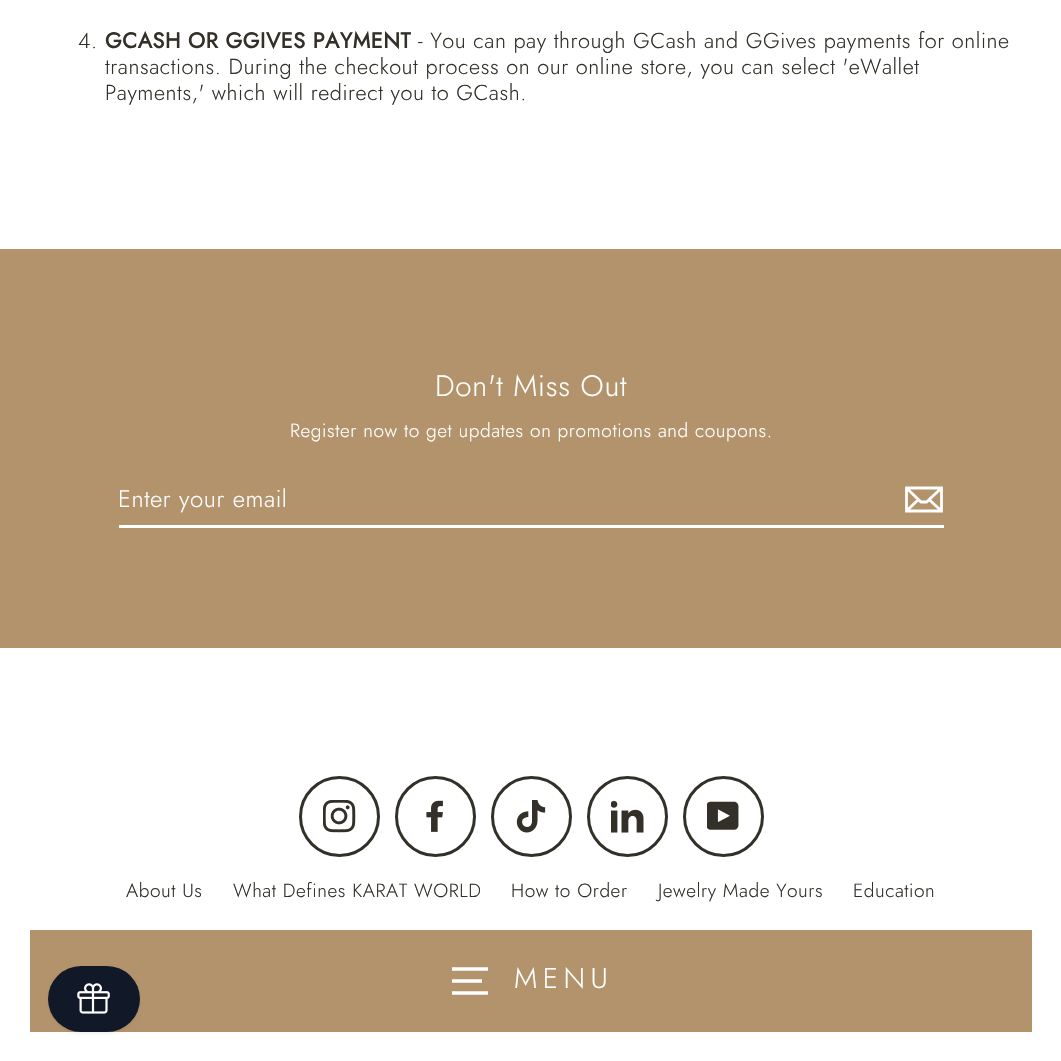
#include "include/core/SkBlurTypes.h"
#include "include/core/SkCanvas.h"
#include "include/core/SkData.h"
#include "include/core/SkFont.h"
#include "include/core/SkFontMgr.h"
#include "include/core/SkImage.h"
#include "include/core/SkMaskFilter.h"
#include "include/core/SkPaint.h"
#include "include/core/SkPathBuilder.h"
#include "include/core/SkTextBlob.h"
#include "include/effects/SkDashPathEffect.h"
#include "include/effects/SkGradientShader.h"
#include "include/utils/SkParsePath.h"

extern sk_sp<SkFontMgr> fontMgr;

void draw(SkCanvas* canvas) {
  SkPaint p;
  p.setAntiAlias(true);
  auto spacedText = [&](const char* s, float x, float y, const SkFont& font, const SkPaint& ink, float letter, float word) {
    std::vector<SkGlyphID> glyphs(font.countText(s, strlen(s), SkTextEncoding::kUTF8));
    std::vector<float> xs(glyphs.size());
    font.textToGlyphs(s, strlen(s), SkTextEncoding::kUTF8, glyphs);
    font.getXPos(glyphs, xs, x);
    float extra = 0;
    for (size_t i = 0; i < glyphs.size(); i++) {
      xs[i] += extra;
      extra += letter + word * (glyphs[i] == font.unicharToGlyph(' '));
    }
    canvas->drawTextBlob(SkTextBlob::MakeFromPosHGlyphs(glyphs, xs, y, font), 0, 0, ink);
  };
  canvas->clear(SK_ColorWHITE);
  p.setColor(SkColorSetRGB(178, 147, 107));
  canvas->drawRect(SkRect::MakeLTRB(0, 249, 1061, 648), p);
  p.setColor(SK_ColorWHITE);
  canvas->drawRect(SkRect::MakeLTRB(119, 525, 944, 528), p);
  p.setStyle(SkPaint::kStroke_Style);
  p.setStrokeWidth(2.8f);
  canvas->drawPath(SkPathBuilder().moveTo(941.5f, 511).lineTo(906.5f, 511).lineTo(906.5f, 488).lineTo(941.5f, 488).close().moveTo(906.5f, 488).lineTo(921, 502).lineTo(926.5f, 502).lineTo(941.5f, 488).moveTo(918.5f, 499.5f).lineTo(907, 510.5f).moveTo(941, 510.5f).lineTo(929, 499.5f).detach(), p);
  p.setStrokeWidth(3);
  p.setColor(SkColorSetRGB(51, 48, 41));
  canvas->drawCircle(339.5f, 816.5f, 39, p);
  canvas->drawImageRect(SkImages::DeferredFromEncodedData(SkData::MakeFromFileName("images/1.png")), SkRect::MakeLTRB(323, 800, 356, 833), SkSamplingOptions());
  canvas->drawCircle(435.5f, 816.5f, 39, p);
  canvas->drawImageRect(SkImages::DeferredFromEncodedData(SkData::MakeFromFileName("images/2.png")), SkRect::MakeLTRB(426, 800, 443, 832), SkSamplingOptions());
  canvas->drawCircle(531.5f, 816.5f, 39, p);
  canvas->drawImageRect(SkImages::DeferredFromEncodedData(SkData::MakeFromFileName("images/3.png")), SkRect::MakeLTRB(516, 800, 546, 833), SkSamplingOptions());
  canvas->drawCircle(627.5f, 816.5f, 39, p);
  canvas->drawImageRect(SkImages::DeferredFromEncodedData(SkData::MakeFromFileName("images/4.png")), SkRect::MakeLTRB(611, 800, 644, 833), SkSamplingOptions());
  canvas->drawCircle(723.5f, 816.5f, 39, p);
  canvas->drawImageRect(SkImages::DeferredFromEncodedData(SkData::MakeFromFileName("images/5.png")), SkRect::MakeLTRB(707, 801, 739, 830), SkSamplingOptions());
  p.setStyle(SkPaint::kFill_Style);
  p.setColor(SkColorSetRGB(178, 147, 107));
  canvas->drawRect(SkRect::MakeLTRB(30, 930, 1032, 1032), p);
  p.setStyle(SkPaint::kStroke_Style);
  p.setStrokeWidth(3.5f);
  p.setColor(SK_ColorWHITE);
  canvas->drawPath(SkPathBuilder().moveTo(452, 969).lineTo(488, 969).moveTo(452, 981).lineTo(482, 981).moveTo(452, 993).lineTo(488, 993).detach(), p);
  p.setStyle(SkPaint::kFill_Style);
  p.setColor(SkColorSetARGB(13, 0, 0, 0));
  p.setMaskFilter(SkMaskFilter::MakeBlur(kNormal_SkBlurStyle, 1.5f));
  canvas->drawRoundRect(SkRect::MakeLTRB(48, 968, 140, 1034), 33, 33, p);
  p.setMaskFilter(nullptr);
  p.setColor(SkColorSetRGB(17, 24, 39));
  canvas->drawRoundRect(SkRect::MakeLTRB(48, 966, 140, 1032), 33, 33, p);
  canvas->drawImageRect(SkImages::DeferredFromEncodedData(SkData::MakeFromFileName("images/6.png")), SkRect::MakeLTRB(77, 983, 110, 1014), SkSamplingOptions());
  SkFont font1(fontMgr->matchFamilyStyle("Jost", SkFontStyle(300, SkFontStyle::kNormal_Width, SkFontStyle::kUpright_Slant)), 21.65f);
  font1.setSubpixel(true);
  p.setColor(SkColorSetRGB(51, 48, 41));
  spacedText("4.", 78, 48, font1, p, 0.55f, 0);
  SkFont font2(fontMgr->matchFamilyStyle("Jost", SkFontStyle::Bold()), 21.65f);
  font2.setSubpixel(true);
  spacedText("GCASH OR GGIVES PAYMENT", 105, 48, font2, p, 0.55f, 0);
  spacedText("- You can pay through GCash and GGives payments for online", 418, 48, font1, p, 0.55f, 0);
  spacedText("transactions. During the checkout process on our online store, you can select 'eWallet", 105, 74, font1, p, 0.55f, 0);
  spacedText("Payments,' which will redirect you to GCash.", 105, 100, font1, p, 0.55f, 0);
  SkFont font3(fontMgr->matchFamilyStyle("Jost", SkFontStyle(300, SkFontStyle::kNormal_Width, SkFontStyle::kUpright_Slant)), 29.5f);
  font3.setSubpixel(true);
  p.setColor(SK_ColorWHITE);
  spacedText("Don't Miss Out", 435, 396, font3, p, 0.75f, 0);
  SkFont font4(fontMgr->matchFamilyStyle("Jost", SkFontStyle(300, SkFontStyle::kNormal_Width, SkFontStyle::kUpright_Slant)), 19.1f);
  font4.setSubpixel(true);
  spacedText("Register now to get updates on promotions and coupons.", 290, 437, font4, p, 0.55f, 0);
  SkFont font5(fontMgr->matchFamilyStyle("Jost", SkFontStyle(300, SkFontStyle::kNormal_Width, SkFontStyle::kUpright_Slant)), 24);
  font5.setSubpixel(true);
  spacedText("Enter your email", 118, 507, font5, p, 0.6f, 0);
  p.setColor(SkColorSetRGB(51, 48, 41));
  spacedText("About Us", 126, 897, font4, p, 0.55f, 0);
  spacedText("What Defines KARAT WORLD", 233, 897, font4, p, 0.55f, 0);
  spacedText("How to Order", 511, 897, font4, p, 0.55f, 0);
  spacedText("Jewelry Made Yours", 658, 897, font4, p, 0.55f, 0);
  spacedText("Education", 853, 897, font4, p, 0.55f, 0);
  SkFont font6(fontMgr->matchFamilyStyle("Jost", SkFontStyle(300, SkFontStyle::kNormal_Width, SkFontStyle::kUpright_Slant)), 28.5f);
  font6.setSubpixel(true);
  p.setColor(SK_ColorWHITE);
  spacedText("MENU", 514, 988, font6, p, 5.5f, 0);
}
